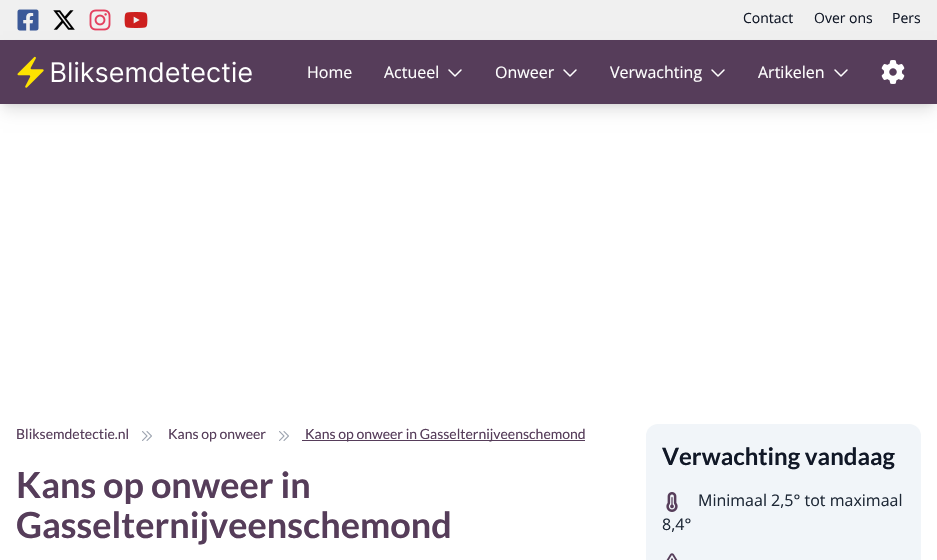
#include "include/core/SkBlurTypes.h"
#include "include/core/SkCanvas.h"
#include "include/core/SkData.h"
#include "include/core/SkFont.h"
#include "include/core/SkFontMgr.h"
#include "include/core/SkImage.h"
#include "include/core/SkMaskFilter.h"
#include "include/core/SkPaint.h"
#include "include/core/SkPathBuilder.h"
#include "include/core/SkTextBlob.h"
#include "include/effects/SkDashPathEffect.h"
#include "include/effects/SkGradientShader.h"
#include "include/utils/SkParsePath.h"

extern sk_sp<SkFontMgr> fontMgr;

void draw(SkCanvas* canvas) {
  SkPaint p;
  p.setAntiAlias(true);
  canvas->clear(SK_ColorWHITE);
  p.setColor(SkColorSetRGB(240, 240, 240));
  canvas->drawRect(SkRect::MakeLTRB(0, 0, 937, 40), p);
  canvas->drawImageRect(SkImages::DeferredFromEncodedData(SkData::MakeFromFileName("images/1.png")), SkRect::MakeLTRB(17, 9, 39, 31), SkSamplingOptions());
  canvas->drawImageRect(SkImages::DeferredFromEncodedData(SkData::MakeFromFileName("images/2.png")), SkRect::MakeLTRB(53, 10, 75, 30), SkSamplingOptions());
  canvas->drawImageRect(SkImages::DeferredFromEncodedData(SkData::MakeFromFileName("images/3.png")), SkRect::MakeLTRB(89, 9, 111, 31), SkSamplingOptions());
  canvas->drawImageRect(SkImages::DeferredFromEncodedData(SkData::MakeFromFileName("images/4.png")), SkRect::MakeLTRB(124, 12, 148, 28), SkSamplingOptions());
  p.setColor(SkColorSetARGB(26, 0, 0, 0));
  p.setMaskFilter(SkMaskFilter::MakeBlur(kNormal_SkBlurStyle, 3));
  canvas->drawRect(SkRect::MakeLTRB(4, 48, 933, 104), p);
  p.setMaskFilter(nullptr);
  p.setMaskFilter(SkMaskFilter::MakeBlur(kNormal_SkBlurStyle, 7.5f));
  canvas->drawRect(SkRect::MakeLTRB(3, 53, 934, 111), p);
  p.setMaskFilter(nullptr);
  p.setColor(SkColorSetRGB(86, 61, 90));
  canvas->drawRect(SkRect::MakeLTRB(0, 40, 937, 104), p);
  canvas->drawImageRect(SkImages::DeferredFromEncodedData(SkData::MakeFromFileName("images/5.png")), SkRect::MakeLTRB(17, 56, 252, 88), SkSamplingOptions());
  canvas->drawImageRect(SkImages::DeferredFromEncodedData(SkData::MakeFromFileName("images/6.png")), SkRect::MakeLTRB(448, 69, 462, 77), SkSamplingOptions());
  canvas->drawImageRect(SkImages::DeferredFromEncodedData(SkData::MakeFromFileName("images/6.png")), SkRect::MakeLTRB(563, 69, 577, 77), SkSamplingOptions());
  canvas->drawImageRect(SkImages::DeferredFromEncodedData(SkData::MakeFromFileName("images/6.png")), SkRect::MakeLTRB(711, 69, 725, 77), SkSamplingOptions());
  canvas->drawImageRect(SkImages::DeferredFromEncodedData(SkData::MakeFromFileName("images/6.png")), SkRect::MakeLTRB(834, 69, 848, 77), SkSamplingOptions());
  canvas->drawImageRect(SkImages::DeferredFromEncodedData(SkData::MakeFromFileName("images/7.png")), SkRect::MakeLTRB(881, 60, 905, 84), SkSamplingOptions());
  canvas->drawImageRect(SkImages::DeferredFromEncodedData(SkData::MakeFromFileName("images/8.png")), SkRect::MakeLTRB(142, 431, 152, 441), SkSamplingOptions());
  canvas->drawImageRect(SkImages::DeferredFromEncodedData(SkData::MakeFromFileName("images/8.png")), SkRect::MakeLTRB(279, 431, 289, 441), SkSamplingOptions());
  canvas->drawRect(SkRect::MakeLTRB(302, 440, 585, 441), p);
  p.setColor(SkColorSetRGB(241, 245, 249));
  canvas->drawRoundRect(SkRect::MakeLTRB(646, 424, 921, 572), 12, 12, p);
  canvas->drawImageRect(SkImages::DeferredFromEncodedData(SkData::MakeFromFileName("images/9.png")), SkRect::MakeLTRB(666, 492, 678, 512), SkSamplingOptions());
  canvas->drawImageRect(SkImages::DeferredFromEncodedData(SkData::MakeFromFileName("images/10.png")), SkRect::MakeLTRB(666, 553, 678, 560), SkSamplingOptions());
  SkFont font1(fontMgr->matchFamilyStyle("Open Sans", SkFontStyle::Normal()), 14);
  font1.setSubpixel(true);
  p.setColor(SkColorSetRGB(17, 24, 39));
  canvas->drawString("Contact", 743, 23, font1, p);
  canvas->drawString("Over ons", 814, 23, font1, p);
  canvas->drawString("Pers", 892, 23, font1, p);
  SkFont font2(fontMgr->matchFamilyStyle("Open Sans", SkFontStyle::Normal()), 16);
  font2.setSubpixel(true);
  p.setColor(SK_ColorWHITE);
  canvas->drawString("Home", 307, 78, font2, p);
  canvas->drawString("Actueel", 384, 78, font2, p);
  canvas->drawString("Onweer", 495, 78, font2, p);
  canvas->drawString("Verwachting", 610, 78, font2, p);
  canvas->drawString("Artikelen", 758, 78, font2, p);
  SkFont font3(fontMgr->matchFamilyStyle("Lato", SkFontStyle::Normal()), 14);
  font3.setSubpixel(true);
  p.setColor(SkColorSetRGB(86, 61, 90));
  canvas->drawString("Bliksemdetectie.nl", 16, 439, font3, p);
  canvas->drawString("Kans op onweer", 168, 439, font3, p);
  canvas->drawString("Kans op onweer in Gasselternijveenschemond", 305, 439, font3, p);
  SkFont font4(fontMgr->matchFamilyStyle("Lato", SkFontStyle::Bold()), 36);
  font4.setSubpixel(true);
  canvas->drawString("Kans op onweer in", 16, 498, font4, p);
  canvas->drawString("Gasselternijveenschemond", 16, 538, font4, p);
  SkFont font5(fontMgr->matchFamilyStyle("Lato", SkFontStyle::Bold()), 24);
  font5.setSubpixel(true);
  p.setColor(SkColorSetRGB(17, 24, 39));
  canvas->drawString("Verwachting vandaag", 662, 465, font5, p);
  p.setColor(SkColorSetRGB(31, 41, 55));
  canvas->drawString("Minimaal 2,5° tot maximaal", 698, 506, font2, p);
  canvas->drawString("8,4°", 662, 530, font2, p);
}
